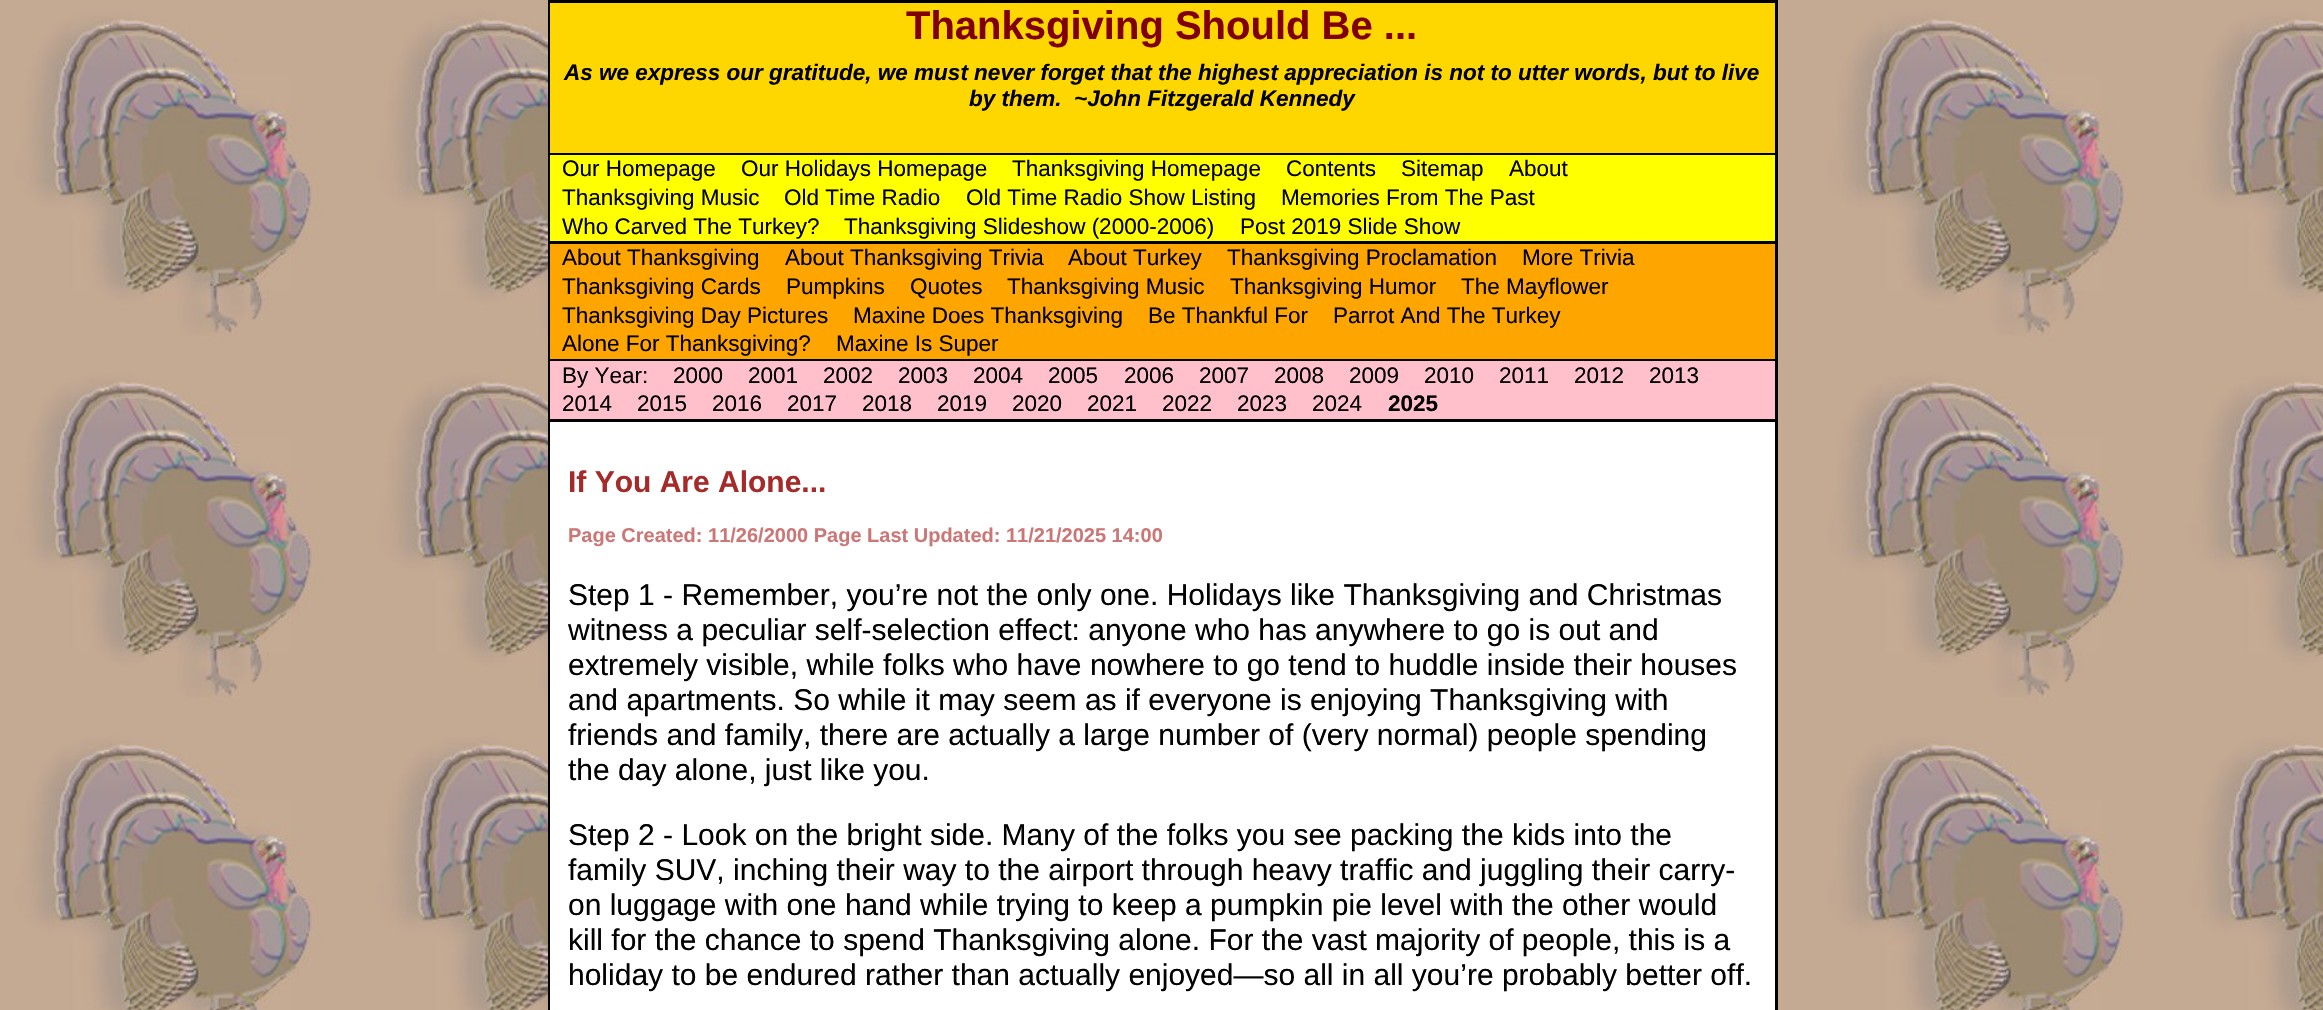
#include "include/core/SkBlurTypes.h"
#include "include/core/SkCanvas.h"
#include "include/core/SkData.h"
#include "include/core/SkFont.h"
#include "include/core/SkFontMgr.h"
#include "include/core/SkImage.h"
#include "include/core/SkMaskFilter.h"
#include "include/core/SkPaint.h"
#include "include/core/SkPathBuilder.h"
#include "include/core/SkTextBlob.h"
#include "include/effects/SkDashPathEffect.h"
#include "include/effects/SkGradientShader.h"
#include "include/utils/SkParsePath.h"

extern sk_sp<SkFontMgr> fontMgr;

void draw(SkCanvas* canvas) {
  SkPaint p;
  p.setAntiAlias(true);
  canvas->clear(SK_ColorWHITE);
  canvas->drawImageRect(SkImages::DeferredFromEncodedData(SkData::MakeFromFileName("images/1.png")), SkRect::MakeLTRB(0, 0, 2323, 1010), SkSamplingOptions());
  p.setStyle(SkPaint::kStroke_Style);
  p.setStrokeWidth(3);
  p.setColor(SK_ColorBLACK);
  canvas->drawRect(SkRect::MakeLTRB(549.5f, 1.5f, 1776.5f, 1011.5f), p);
  p.setStyle(SkPaint::kFill_Style);
  p.setColor(SkColorSetRGB(255, 215, 0));
  canvas->drawRect(SkRect::MakeLTRB(550, 3, 1775, 153), p);
  p.setColor(SK_ColorBLACK);
  canvas->drawRect(SkRect::MakeLTRB(550, 153, 1775, 155), p);
  canvas->drawRect(SkRect::MakeLTRB(550, 419, 1775, 422), p);
  p.setColor(SkColorSetRGB(255, 255, 0));
  canvas->drawRect(SkRect::MakeLTRB(550, 155, 1775, 241), p);
  p.setColor(SK_ColorBLACK);
  canvas->drawRect(SkRect::MakeLTRB(550, 241, 1775, 244), p);
  p.setColor(SkColorSetRGB(255, 165, 0));
  canvas->drawRect(SkRect::MakeLTRB(550, 244, 1775, 359), p);
  p.setColor(SK_ColorBLACK);
  canvas->drawRect(SkRect::MakeLTRB(550, 359, 1775, 361), p);
  p.setColor(SkColorSetRGB(255, 192, 203));
  canvas->drawRect(SkRect::MakeLTRB(550, 361, 1775, 419), p);
  p.setColor(SK_ColorWHITE);
  canvas->drawRect(SkRect::MakeLTRB(550, 422, 1775, 1010), p);
  SkFont font1(fontMgr->matchFamilyStyle("Liberation Sans", SkFontStyle::Bold()), 40);
  font1.setSubpixel(true);
  p.setColor(SkColorSetRGB(128, 0, 0));
  canvas->drawString("Thanksgiving Should Be ...", 906, 39, font1, p);
  SkFont font2(fontMgr->matchFamilyStyle("Liberation Sans", SkFontStyle::BoldItalic()), 22.5f);
  font2.setSubpixel(true);
  p.setColor(SK_ColorBLACK);
  canvas->drawString("As we express our gratitude, we must never forget that the highest appreciation is not to utter words, but to live", 564, 80, font2, p);
  canvas->drawString("by them.  ~John Fitzgerald Kennedy", 969, 106, font2, p);
  SkFont font3(fontMgr->matchFamilyStyle("Liberation Sans", SkFontStyle::Normal()), 22.5f);
  font3.setSubpixel(true);
  canvas->drawString("Our Homepage", 562, 176, font3, p);
  canvas->drawString("Our Holidays Homepage", 741, 176, font3, p);
  canvas->drawString("Thanksgiving Homepage", 1012, 176, font3, p);
  canvas->drawString("Contents", 1286, 176, font3, p);
  canvas->drawString("Sitemap", 1401, 176, font3, p);
  canvas->drawString("About", 1509, 176, font3, p);
  canvas->drawString("Thanksgiving Music", 562, 205, font3, p);
  canvas->drawString("Old Time Radio", 784, 205, font3, p);
  canvas->drawString("Old Time Radio Show Listing", 966, 205, font3, p);
  canvas->drawString("Memories From The Past", 1281, 205, font3, p);
  canvas->drawString("Who Carved The Turkey?", 562, 234, font3, p);
  canvas->drawString("Thanksgiving Slideshow (2000-2006)", 844, 234, font3, p);
  canvas->drawString("Post 2019 Slide Show", 1240, 234, font3, p);
  canvas->drawString("About Thanksgiving", 562, 265, font3, p);
  canvas->drawString("About Thanksgiving Trivia", 785, 265, font3, p);
  canvas->drawString("About Turkey", 1068, 265, font3, p);
  canvas->drawString("Thanksgiving Proclamation", 1227, 265, font3, p);
  canvas->drawString("More Trivia", 1522, 265, font3, p);
  canvas->drawString("Thanksgiving Cards", 562, 294, font3, p);
  canvas->drawString("Pumpkins", 786, 294, font3, p);
  canvas->drawString("Quotes", 910, 294, font3, p);
  canvas->drawString("Thanksgiving Music", 1007, 294, font3, p);
  canvas->drawString("Thanksgiving Humor", 1230, 294, font3, p);
  canvas->drawString("The Mayflower", 1461, 294, font3, p);
  canvas->drawString("Thanksgiving Day Pictures", 562, 323, font3, p);
  canvas->drawString("Maxine Does Thanksgiving", 853, 323, font3, p);
  canvas->drawString("Be Thankful For", 1148, 323, font3, p);
  canvas->drawString("Parrot And The Turkey", 1333, 323, font3, p);
  canvas->drawString("Alone For Thanksgiving?", 562, 351, font3, p);
  canvas->drawString("Maxine Is Super", 836, 351, font3, p);
  canvas->drawString("By Year:", 562, 383, font3, p);
  canvas->drawString("2000", 673, 383, font3, p);
  canvas->drawString("2001", 748, 383, font3, p);
  canvas->drawString("2002", 823, 383, font3, p);
  canvas->drawString("2003", 898, 383, font3, p);
  canvas->drawString("2004", 973, 383, font3, p);
  canvas->drawString("2005", 1048, 383, font3, p);
  canvas->drawString("2006", 1124, 383, font3, p);
  canvas->drawString("2007", 1199, 383, font3, p);
  canvas->drawString("2008", 1274, 383, font3, p);
  canvas->drawString("2009", 1349, 383, font3, p);
  canvas->drawString("2010", 1424, 383, font3, p);
  canvas->drawString("2011", 1499, 383, font3, p);
  canvas->drawString("2012", 1574, 383, font3, p);
  canvas->drawString("2013", 1649, 383, font3, p);
  canvas->drawString("2014", 562, 411, font3, p);
  canvas->drawString("2015", 637, 411, font3, p);
  canvas->drawString("2016", 712, 411, font3, p);
  canvas->drawString("2017", 787, 411, font3, p);
  canvas->drawString("2018", 862, 411, font3, p);
  canvas->drawString("2019", 937, 411, font3, p);
  canvas->drawString("2020", 1012, 411, font3, p);
  canvas->drawString("2021", 1087, 411, font3, p);
  canvas->drawString("2022", 1162, 411, font3, p);
  canvas->drawString("2023", 1237, 411, font3, p);
  canvas->drawString("2024", 1312, 411, font3, p);
  SkFont font4(fontMgr->matchFamilyStyle("Liberation Sans", SkFontStyle::Bold()), 22.5f);
  font4.setSubpixel(true);
  canvas->drawString("2025", 1388, 411, font4, p);
  SkFont font5(fontMgr->matchFamilyStyle("Liberation Sans", SkFontStyle::Bold()), 30);
  font5.setSubpixel(true);
  p.setColor(SkColorSetRGB(165, 42, 42));
  canvas->drawString("If You Are Alone...", 568, 492, font5, p);
  SkFont font6(fontMgr->matchFamilyStyle("Liberation Sans", SkFontStyle::Bold()), 20);
  font6.setSubpixel(true);
  p.setColor(SkColorSetRGB(204, 119, 119));
  canvas->drawString("Page Created: 11/26/2000 Page Last Updated: 11/21/2025 14:00", 568, 542, font6, p);
  SkFont font7(fontMgr->matchFamilyStyle("Liberation Sans", SkFontStyle::Normal()), 30);
  font7.setSubpixel(true);
  p.setColor(SK_ColorBLACK);
  canvas->drawString("Step 1 - Remember, you’re not the only one. Holidays like Thanksgiving and Christmas", 568, 605, font7, p);
  canvas->drawString("witness a peculiar self-selection effect: anyone who has anywhere to go is out and", 568, 640, font7, p);
  canvas->drawString("extremely visible, while folks who have nowhere to go tend to huddle inside their houses", 568, 675, font7, p);
  canvas->drawString("and apartments. So while it may seem as if everyone is enjoying Thanksgiving with", 568, 710, font7, p);
  canvas->drawString("friends and family, there are actually a large number of (very normal) people spending", 568, 745, font7, p);
  canvas->drawString("the day alone, just like you.", 568, 780, font7, p);
  canvas->drawString("Step 2 - Look on the bright side. Many of the folks you see packing the kids into the", 568, 845, font7, p);
  canvas->drawString("family SUV, inching their way to the airport through heavy traffic and juggling their carry-", 568, 880, font7, p);
  canvas->drawString("on luggage with one hand while trying to keep a pumpkin pie level with the other would", 568, 915, font7, p);
  canvas->drawString("kill for the chance to spend Thanksgiving alone. For the vast majority of people, this is a", 568, 950, font7, p);
  canvas->drawString("holiday to be endured rather than actually enjoyed—so all in all you’re probably better off.", 568, 985, font7, p);
}
